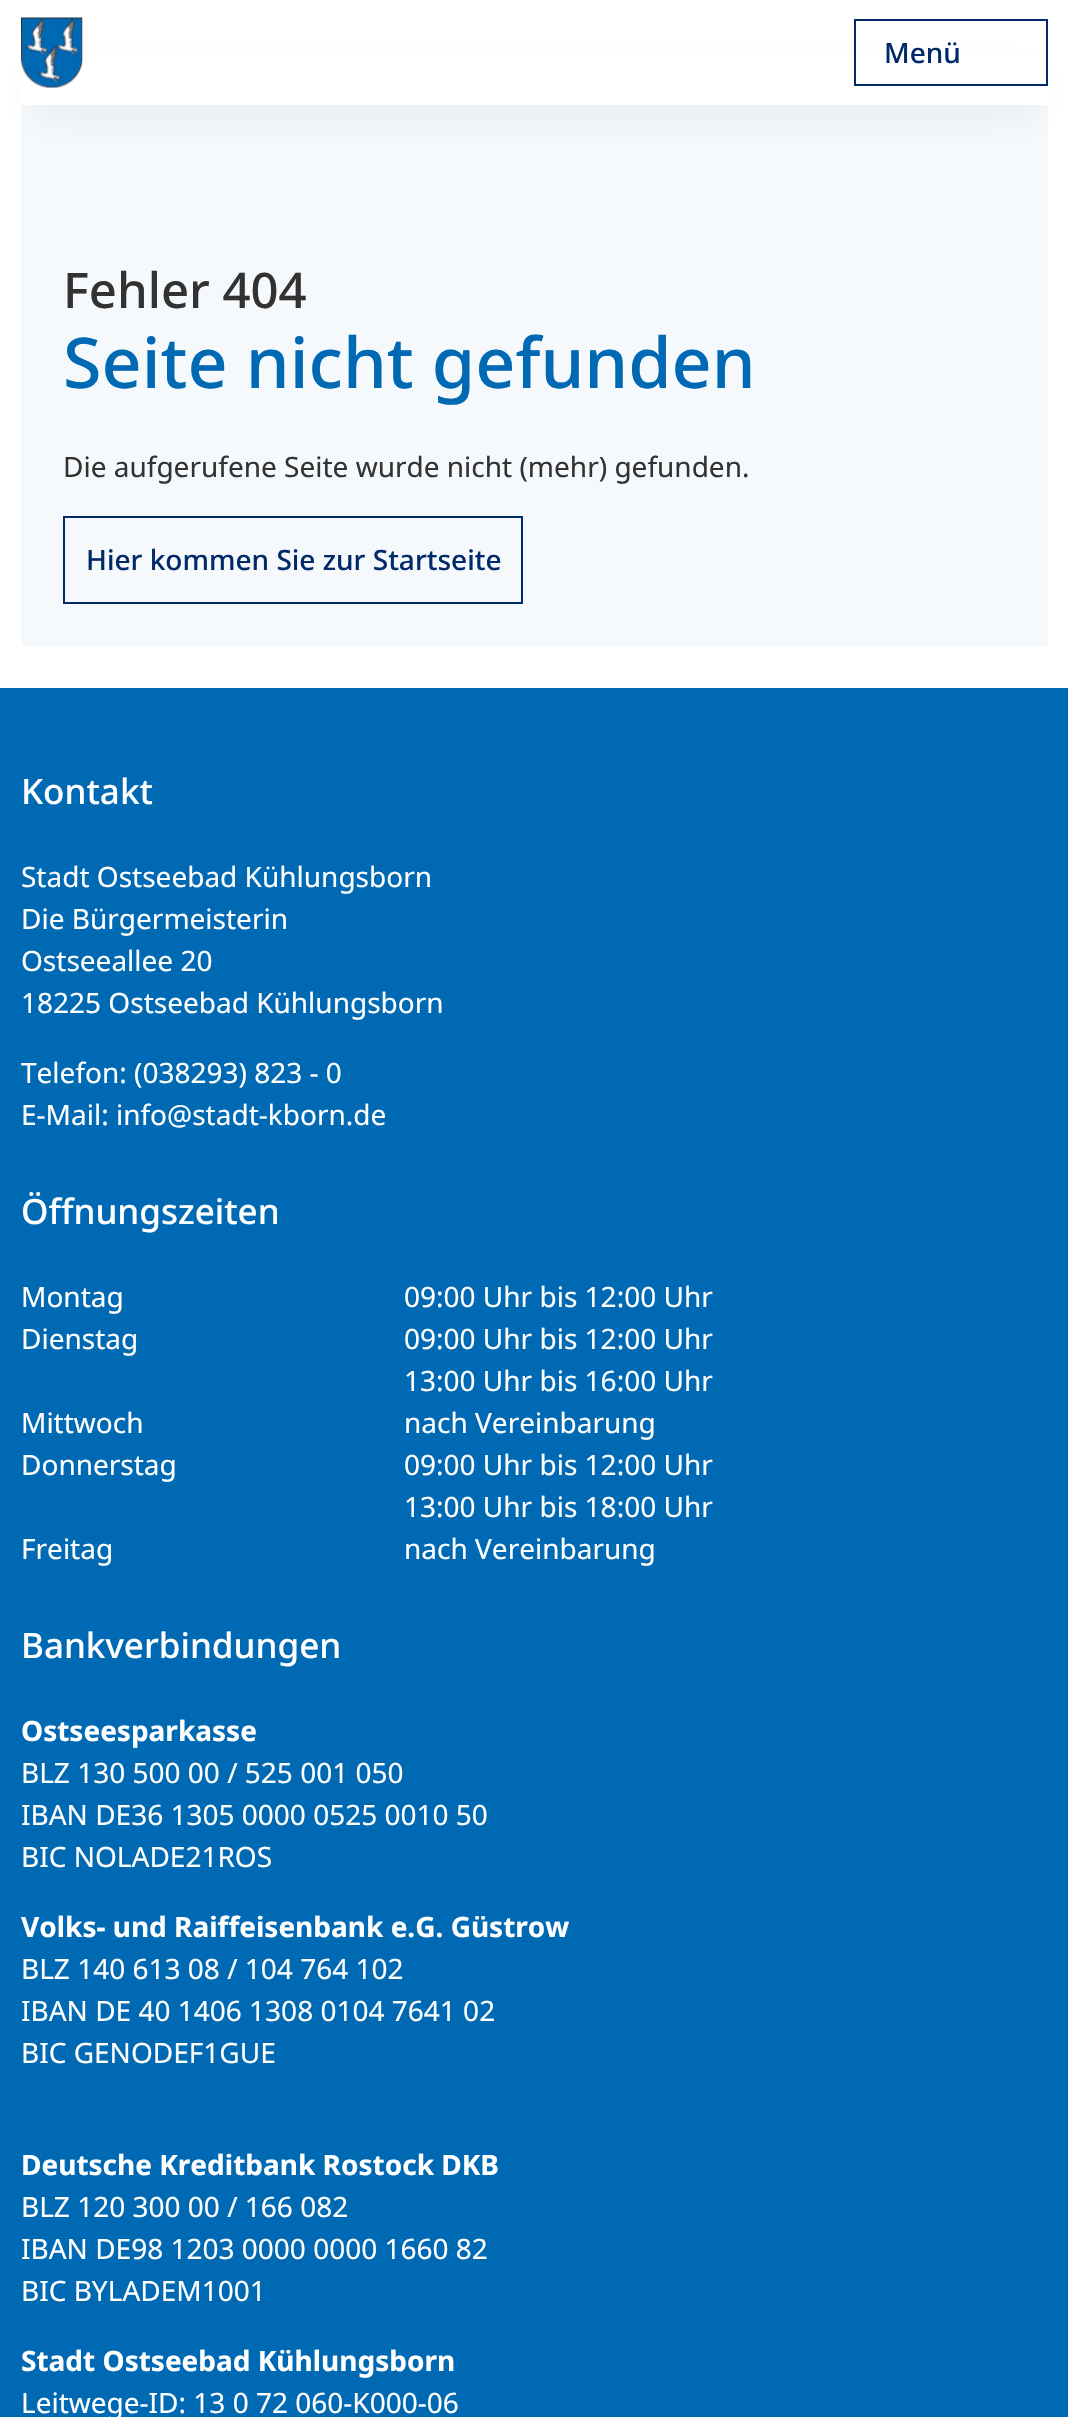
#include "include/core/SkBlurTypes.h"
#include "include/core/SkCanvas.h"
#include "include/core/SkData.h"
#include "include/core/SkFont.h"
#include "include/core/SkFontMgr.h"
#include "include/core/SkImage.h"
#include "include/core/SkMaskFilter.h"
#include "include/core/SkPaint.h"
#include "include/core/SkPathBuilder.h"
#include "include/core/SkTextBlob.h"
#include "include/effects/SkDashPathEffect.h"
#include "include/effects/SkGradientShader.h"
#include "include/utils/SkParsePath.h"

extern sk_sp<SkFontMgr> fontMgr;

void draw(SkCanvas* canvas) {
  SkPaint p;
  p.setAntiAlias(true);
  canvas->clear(SK_ColorWHITE);
  p.setColor(SkColorSetRGB(245, 249, 252));
  canvas->drawRect(SkRect::MakeLTRB(21, 105, 1048, 646), p);
  p.setColor(SkColorSetARGB(20, 18, 20, 25));
  p.setMaskFilter(SkMaskFilter::MakeBlur(kNormal_SkBlurStyle, 21));
  canvas->drawRect(SkRect::MakeLTRB(35, 77, 1034, 112), p);
  p.setMaskFilter(nullptr);
  p.setColor(SK_ColorWHITE);
  canvas->drawRect(SkRect::MakeLTRB(20, 54, 1049, 105), p);
  canvas->drawImageRect(SkImages::DeferredFromEncodedData(SkData::MakeFromFileName("images/1.png")), SkRect::MakeLTRB(21, 17, 83, 88), SkSamplingOptions());
  p.setStyle(SkPaint::kStroke_Style);
  p.setStrokeWidth(2);
  p.setColor(SkColorSetRGB(0, 42, 106));
  canvas->drawRect(SkRect::MakeLTRB(855, 20, 1047, 85), p);
  canvas->drawRect(SkRect::MakeLTRB(64, 517, 522, 603), p);
  p.setStyle(SkPaint::kFill_Style);
  p.setColor(SkColorSetRGB(0, 105, 180));
  canvas->drawRect(SkRect::MakeLTRB(0, 688, 1068, 2417), p);
  SkFont font1(fontMgr->matchFamilyStyle("Noto Sans", SkFontStyle(500, SkFontStyle::kNormal_Width, SkFontStyle::kUpright_Slant)), 28);
  font1.setSubpixel(true);
  p.setColor(SkColorSetRGB(0, 42, 106));
  canvas->drawString("Menü", 884, 63, font1, p);
  SkFont font2(fontMgr->matchFamilyStyle("Noto Sans", SkFontStyle(500, SkFontStyle::kNormal_Width, SkFontStyle::kUpright_Slant)), 49);
  font2.setSubpixel(true);
  p.setColor(SkColorSetRGB(50, 50, 50));
  canvas->drawString("Fehler 404", 63, 308, font2, p);
  SkFont font3(fontMgr->matchFamilyStyle("Noto Sans", SkFontStyle(500, SkFontStyle::kNormal_Width, SkFontStyle::kUpright_Slant)), 70);
  font3.setSubpixel(true);
  p.setColor(SkColorSetRGB(0, 105, 180));
  canvas->drawString("Seite nicht gefunden", 63, 388, font3, p);
  SkFont font4(fontMgr->matchFamilyStyle("Noto Sans", SkFontStyle::Normal()), 28);
  font4.setSubpixel(true);
  p.setColor(SkColorSetRGB(50, 50, 50));
  canvas->drawString("Die aufgerufene Seite wurde nicht (mehr) gefunden.", 63, 477, font4, p);
  p.setColor(SkColorSetRGB(0, 42, 106));
  canvas->drawString("Hier kommen Sie zur Startseite", 86, 570, font1, p);
  SkFont font5(fontMgr->matchFamilyStyle("Noto Sans", SkFontStyle(500, SkFontStyle::kNormal_Width, SkFontStyle::kUpright_Slant)), 35);
  font5.setSubpixel(true);
  p.setColor(SK_ColorWHITE);
  canvas->drawString("Kontakt", 21, 804, font5, p);
  canvas->drawString("Stadt Ostseebad Kühlungsborn", 21, 887, font4, p);
  canvas->drawString("Die Bürgermeisterin", 21, 929, font4, p);
  canvas->drawString("Ostseeallee 20", 21, 971, font4, p);
  canvas->drawString("18225 Ostseebad Kühlungsborn", 21, 1013, font4, p);
  canvas->drawString("Telefon: (038293) 823 - 0", 21, 1083, font4, p);
  canvas->drawString("E-Mail: info@stadt-kborn.de", 21, 1125, font4, p);
  canvas->drawString("Öffnungszeiten", 21, 1224, font5, p);
  canvas->drawString("Montag", 21, 1307, font4, p);
  canvas->drawString("09:00 Uhr bis 12:00 Uhr", 404, 1307, font4, p);
  canvas->drawString("Dienstag", 21, 1349, font4, p);
  canvas->drawString("09:00 Uhr bis 12:00 Uhr", 404, 1349, font4, p);
  canvas->drawString("13:00 Uhr bis 16:00 Uhr", 404, 1391, font4, p);
  canvas->drawString("Mittwoch", 21, 1433, font4, p);
  canvas->drawString("nach Vereinbarung", 404, 1433, font4, p);
  canvas->drawString("Donnerstag", 21, 1475, font4, p);
  canvas->drawString("09:00 Uhr bis 12:00 Uhr", 404, 1475, font4, p);
  canvas->drawString("13:00 Uhr bis 18:00 Uhr", 404, 1517, font4, p);
  canvas->drawString("Freitag", 21, 1559, font4, p);
  canvas->drawString("nach Vereinbarung", 404, 1559, font4, p);
  canvas->drawString("Bankverbindungen", 21, 1658, font5, p);
  SkFont font6(fontMgr->matchFamilyStyle("Noto Sans", SkFontStyle::Bold()), 28);
  font6.setSubpixel(true);
  canvas->drawString("Ostseesparkasse", 21, 1741, font6, p);
  canvas->drawString("BLZ 130 500 00 / 525 001 050", 21, 1783, font4, p);
  canvas->drawString("IBAN DE36 1305 0000 0525 0010 50", 21, 1825, font4, p);
  canvas->drawString("BIC NOLADE21ROS", 21, 1867, font4, p);
  canvas->drawString("Volks- und Raiffeisenbank e.G. Güstrow", 21, 1937, font6, p);
  canvas->drawString("BLZ 140 613 08 / 104 764 102", 21, 1979, font4, p);
  canvas->drawString("IBAN DE 40 1406 1308 0104 7641 02", 21, 2021, font4, p);
  canvas->drawString("BIC GENODEF1GUE", 21, 2063, font4, p);
  canvas->drawString("Deutsche Kreditbank Rostock DKB", 21, 2175, font6, p);
  canvas->drawString("BLZ 120 300 00 / 166 082", 21, 2217, font4, p);
  canvas->drawString("IBAN DE98 1203 0000 0000 1660 82", 21, 2259, font4, p);
  canvas->drawString("BIC BYLADEM1001", 21, 2301, font4, p);
  canvas->drawString("Stadt Ostseebad Kühlungsborn", 21, 2371, font6, p);
  canvas->drawString("Leitwege-ID: 13 0 72 060-K000-06", 21, 2413, font4, p);
}
